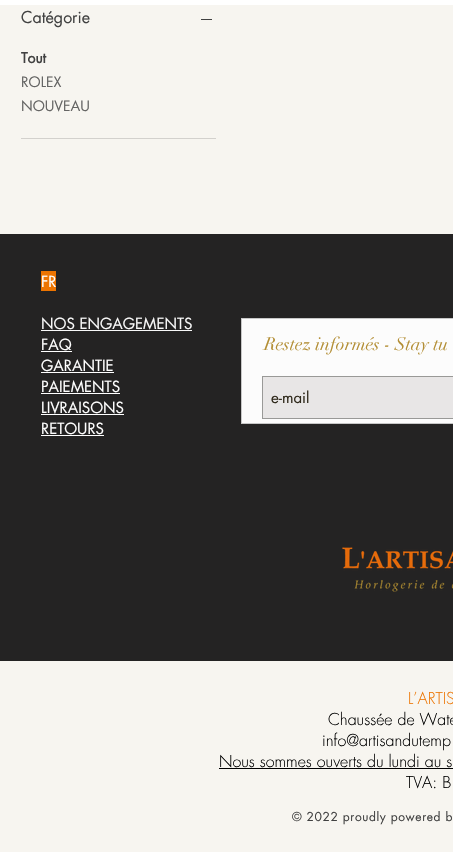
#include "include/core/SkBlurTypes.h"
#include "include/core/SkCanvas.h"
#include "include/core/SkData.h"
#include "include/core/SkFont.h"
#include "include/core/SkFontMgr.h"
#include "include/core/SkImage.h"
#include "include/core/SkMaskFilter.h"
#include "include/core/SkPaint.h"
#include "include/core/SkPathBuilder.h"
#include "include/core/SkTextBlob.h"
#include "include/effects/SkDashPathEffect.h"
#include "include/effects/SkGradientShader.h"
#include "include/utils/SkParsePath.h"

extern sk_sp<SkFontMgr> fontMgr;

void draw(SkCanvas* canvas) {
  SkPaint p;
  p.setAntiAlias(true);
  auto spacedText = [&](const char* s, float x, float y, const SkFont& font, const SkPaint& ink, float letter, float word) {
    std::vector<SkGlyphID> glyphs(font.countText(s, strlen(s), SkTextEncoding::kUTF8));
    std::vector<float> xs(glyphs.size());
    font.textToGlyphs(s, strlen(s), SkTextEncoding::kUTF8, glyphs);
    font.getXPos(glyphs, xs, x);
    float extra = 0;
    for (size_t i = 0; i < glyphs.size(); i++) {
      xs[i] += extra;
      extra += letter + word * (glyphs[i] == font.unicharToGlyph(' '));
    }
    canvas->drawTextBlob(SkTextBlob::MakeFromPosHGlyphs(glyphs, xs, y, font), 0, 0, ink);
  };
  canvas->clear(SkColorSetRGB(247, 245, 240));
  p.setColor(SK_ColorWHITE);
  canvas->drawRect(SkRect::MakeLTRB(0, 0, 453, 5), p);
  p.setColor(SkColorSetRGB(211, 209, 205));
  canvas->drawRect(SkRect::MakeLTRB(21, 138, 216, 139), p);
  p.setColor(SkColorSetRGB(65, 65, 65));
  canvas->drawRect(SkRect::MakeLTRB(201, 19, 212, 20), p);
  p.setColor(SkColorSetRGB(36, 35, 35));
  canvas->drawRect(SkRect::MakeLTRB(0, 234, 453, 661), p);
  p.setColor(SkColorSetRGB(237, 116, 0));
  canvas->drawRect(SkRect::MakeLTRB(41, 271, 56, 291), p);
  p.setColor(SkColorSetRGB(249, 249, 249));
  canvas->drawRect(SkRect::MakeLTRB(41, 330, 192, 331), p);
  p.setColor(SK_ColorWHITE);
  canvas->drawRect(SkRect::MakeLTRB(41, 351, 72, 352), p);
  canvas->drawRect(SkRect::MakeLTRB(41, 372, 114, 373), p);
  canvas->drawRect(SkRect::MakeLTRB(41, 393, 120, 394), p);
  canvas->drawRect(SkRect::MakeLTRB(41, 414, 124, 415), p);
  canvas->drawRect(SkRect::MakeLTRB(41, 435, 104, 436), p);
  p.setColor(SkColorSetRGB(252, 252, 252));
  canvas->drawRect(SkRect::MakeLTRB(241.5f, 318.5f, 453.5f, 423.5f), p);
  p.setStyle(SkPaint::kStroke_Style);
  p.setStrokeWidth(1);
  p.setColor(SkColorSetRGB(199, 199, 199));
  canvas->drawRect(SkRect::MakeLTRB(241.5f, 318.5f, 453.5f, 423.5f), p);
  p.setStyle(SkPaint::kFill_Style);
  p.setColor(SkColorSetRGB(232, 230, 230));
  canvas->drawRect(SkRect::MakeLTRB(262.5f, 376.5f, 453.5f, 418.5f), p);
  p.setStyle(SkPaint::kStroke_Style);
  p.setColor(SkColorSetRGB(153, 153, 151));
  canvas->drawRect(SkRect::MakeLTRB(262.5f, 376.5f, 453.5f, 418.5f), p);
  canvas->drawImageRect(SkImages::DeferredFromEncodedData(SkData::MakeFromFileName("images/1.png")), SkRect::MakeLTRB(342, 547, 453, 592), SkSamplingOptions());
  p.setStyle(SkPaint::kFill_Style);
  p.setColor(SK_ColorBLACK);
  canvas->drawRect(SkRect::MakeLTRB(219, 768, 453, 769), p);
  SkFont font1(fontMgr->matchFamilyStyle("futura", SkFontStyle::Normal()), 16);
  font1.setSubpixel(true);
  p.setColor(SkColorSetRGB(65, 65, 65));
  canvas->drawString("Catégorie", 21, 23, font1, p);
  SkFont font2(fontMgr->matchFamilyStyle("futura", SkFontStyle::Bold()), 14);
  font2.setSubpixel(true);
  canvas->drawString("Tout", 21, 63, font2, p);
  SkFont font3(fontMgr->matchFamilyStyle("futura", SkFontStyle::Normal()), 14);
  font3.setSubpixel(true);
  p.setColor(SkColorSetRGB(101, 101, 100));
  canvas->drawString("ROLEX", 21, 87, font3, p);
  canvas->drawString("NOUVEAU", 21, 111, font3, p);
  SkFont font4(fontMgr->matchFamilyStyle("futura", SkFontStyle::Normal()), 15);
  font4.setSubpixel(true);
  p.setColor(SK_ColorWHITE);
  canvas->drawString("FR", 41, 287, font4, p);
  p.setColor(SkColorSetRGB(249, 249, 249));
  canvas->drawString("NOS ENGAGEMENTS", 41, 329, font4, p);
  p.setColor(SK_ColorWHITE);
  canvas->drawString("FAQ", 41, 350, font4, p);
  canvas->drawString("GARANTIE", 41, 371, font4, p);
  canvas->drawString("PAIEMENTS", 41, 392, font4, p);
  canvas->drawString("LIVRAISONS", 41, 413, font4, p);
  canvas->drawString("RETOURS", 41, 434, font4, p);
  SkFont font5(fontMgr->matchFamilyStyle("didot", SkFontStyle::Normal()), 18);
  font5.setSubpixel(true);
  p.setColor(SkColorSetRGB(179, 142, 52));
  canvas->drawString("Restez informés - Stay tu", 264, 350, font5, p);
  p.setColor(SkColorSetRGB(47, 41, 27));
  canvas->drawString("e-mail", 271, 403, font4, p);
  SkFont font6(fontMgr->matchFamilyStyle("futura", SkFontStyle(300, SkFontStyle::kNormal_Width, SkFontStyle::kUpright_Slant)), 16);
  font6.setSubpixel(true);
  p.setColor(SkColorSetRGB(237, 116, 0));
  canvas->drawString("L’ARTIS", 408, 704, font6, p);
  p.setColor(SK_ColorBLACK);
  canvas->drawString("Chaussée de Wate", 328, 725, font6, p);
  canvas->drawString("info@artisandutemp", 322, 746, font6, p);
  canvas->drawString("Nous sommes ouverts du lundi au s", 219, 767, font6, p);
  canvas->drawString("TVA: B", 406, 788, font6, p);
  SkFont font7(fontMgr->matchFamilyStyle("futura", SkFontStyle::Normal()), 12);
  font7.setSubpixel(true);
  p.setColor(SkColorSetRGB(65, 65, 65));
  spacedText("© 2022 proudly powered b", 292, 821, font7, p, 0.6f, 0);
}
